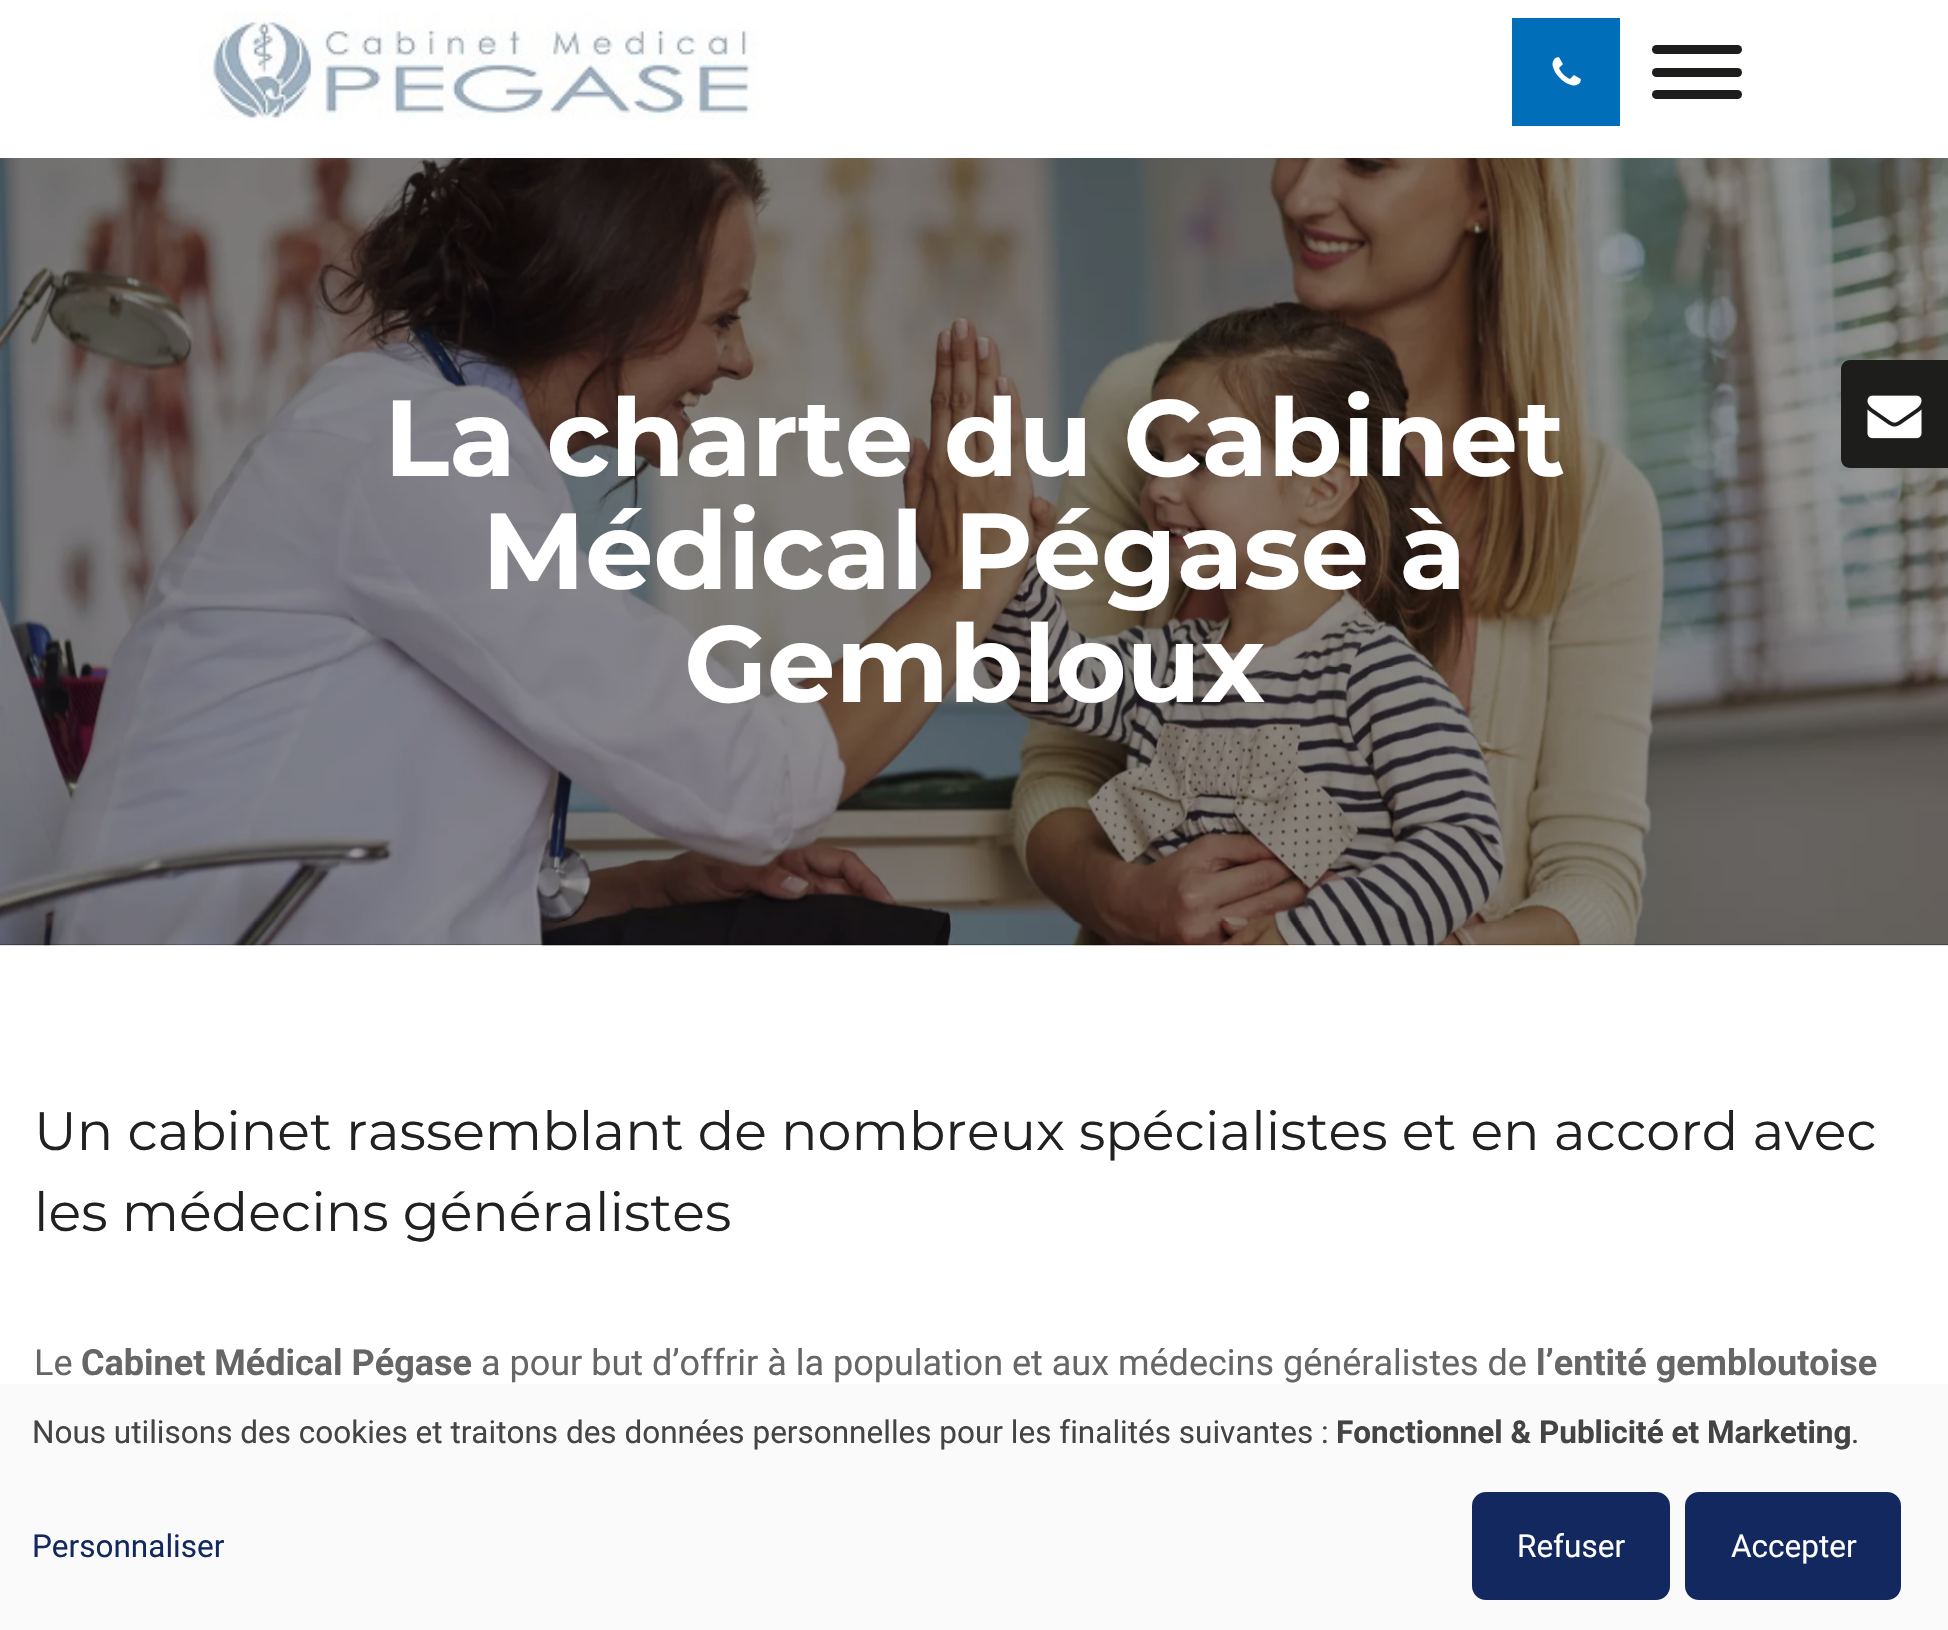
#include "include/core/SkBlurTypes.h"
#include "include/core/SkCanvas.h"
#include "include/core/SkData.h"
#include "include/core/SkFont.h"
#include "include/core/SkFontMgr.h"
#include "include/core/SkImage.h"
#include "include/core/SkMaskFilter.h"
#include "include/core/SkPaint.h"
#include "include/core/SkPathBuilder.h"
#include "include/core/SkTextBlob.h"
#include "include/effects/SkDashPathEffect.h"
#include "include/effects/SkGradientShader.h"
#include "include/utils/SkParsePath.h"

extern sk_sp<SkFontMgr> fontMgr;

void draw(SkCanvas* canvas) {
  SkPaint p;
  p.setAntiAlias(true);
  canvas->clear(SK_ColorWHITE);
  canvas->drawImageRect(SkImages::DeferredFromEncodedData(SkData::MakeFromFileName("images/1.png")), SkRect::MakeLTRB(198, 11, 760, 120), SkSamplingOptions());
  p.setColor(SkColorSetRGB(0, 110, 184));
  canvas->drawRect(SkRect::MakeLTRB(1512, 18, 1620, 126), p);
  canvas->drawImageRect(SkImages::DeferredFromEncodedData(SkData::MakeFromFileName("images/2.png")), SkRect::MakeLTRB(1552, 57, 1581, 86), SkSamplingOptions());
  p.setColor(SkColorSetRGB(29, 29, 27));
  canvas->drawRoundRect(SkRect::MakeLTRB(1652, 45, 1742, 54), 4.5f, 4.5f, p);
  canvas->drawRoundRect(SkRect::MakeLTRB(1652, 68, 1742, 77), 4.5f, 4.5f, p);
  canvas->drawRoundRect(SkRect::MakeLTRB(1652, 90, 1742, 99), 4.5f, 4.5f, p);
  p.setColor(SK_ColorBLACK);
  canvas->drawRect(SkRect::MakeLTRB(0, 158, 1948, 945), p);
  canvas->drawImageRect(SkImages::DeferredFromEncodedData(SkData::MakeFromFileName("images/3.png")), SkRect::MakeLTRB(0, 158, 1948, 946), SkSamplingOptions());
  p.setColor(SkColorSetRGB(29, 29, 27));
  canvas->drawPath(SkPathBuilder().moveTo(1850, 360).lineTo(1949, 360).lineTo(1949, 468).lineTo(1850, 468).cubicTo(1845, 468, 1841, 464, 1841, 459).lineTo(1841, 369).cubicTo(1841, 364, 1845, 360, 1850, 360).close().detach(), p);
  canvas->drawImageRect(SkImages::DeferredFromEncodedData(SkData::MakeFromFileName("images/4.png")), SkRect::MakeLTRB(1867, 395, 1922, 439), SkSamplingOptions());
  p.setColor(SkColorSetRGB(250, 250, 250));
  canvas->drawRect(SkRect::MakeLTRB(0, 1384, 1948, 1630), p);
  p.setColor(SkColorSetRGB(18, 40, 95));
  canvas->drawRoundRect(SkRect::MakeLTRB(1475.5f, 1495.5f, 1666.5f, 1596.5f), 10.5f, 10.5f, p);
  p.setStyle(SkPaint::kStroke_Style);
  p.setStrokeWidth(7);
  canvas->drawRoundRect(SkRect::MakeLTRB(1475.5f, 1495.5f, 1666.5f, 1596.5f), 10.5f, 10.5f, p);
  p.setStyle(SkPaint::kFill_Style);
  canvas->drawRoundRect(SkRect::MakeLTRB(1688.5f, 1495.5f, 1897.5f, 1596.5f), 10.5f, 10.5f, p);
  p.setStyle(SkPaint::kStroke_Style);
  canvas->drawRoundRect(SkRect::MakeLTRB(1688.5f, 1495.5f, 1897.5f, 1596.5f), 10.5f, 10.5f, p);
  SkFont font1(fontMgr->matchFamilyStyle("Montserrat", SkFontStyle::Bold()), 108);
  font1.setSubpixel(true);
  p.setStyle(SkPaint::kFill_Style);
  p.setColor(SK_ColorWHITE);
  canvas->drawString("La charte du Cabinet", 384, 476, font1, p);
  canvas->drawString("Médical Pégase à", 482, 589, font1, p);
  canvas->drawString("Gembloux", 684, 702, font1, p);
  SkFont font2(fontMgr->matchFamilyStyle("Montserrat", SkFontStyle::Normal()), 54);
  font2.setSubpixel(true);
  p.setColor(SkColorSetRGB(33, 33, 33));
  canvas->drawString("Un cabinet rassemblant de nombreux spécialistes et en accord avec", 34, 1150, font2, p);
  canvas->drawString("les médecins généralistes", 34, 1231, font2, p);
  SkFont font3(fontMgr->matchFamilyStyle("Roboto", SkFontStyle::Normal()), 36);
  font3.setSubpixel(true);
  p.setColor(SkColorSetRGB(102, 102, 102));
  canvas->drawString("Le", 34, 1375, font3, p);
  SkFont font4(fontMgr->matchFamilyStyle("Roboto", SkFontStyle::Bold()), 36);
  font4.setSubpixel(true);
  canvas->drawString("Cabinet Médical Pégase", 81, 1375, font4, p);
  canvas->drawString("a pour but d’offrir à la population et aux médecins généralistes de", 481, 1375, font3, p);
  canvas->drawString("l’entité gembloutoise", 1536, 1375, font4, p);
  SkFont font5(fontMgr->matchFamilyStyle("Roboto", SkFontStyle::Normal()), 31.5f);
  font5.setSubpixel(true);
  p.setColor(SkColorSetRGB(68, 68, 68));
  canvas->drawString("Nous utilisons des cookies et traitons des données personnelles pour les finalités suivantes :", 32, 1443, font5, p);
  SkFont font6(fontMgr->matchFamilyStyle("Roboto", SkFontStyle::Bold()), 31.5f);
  font6.setSubpixel(true);
  canvas->drawString("Fonctionnel & Publicité et Marketing", 1336, 1443, font6, p);
  canvas->drawString(".", 1851, 1443, font5, p);
  p.setColor(SkColorSetRGB(18, 40, 95));
  canvas->drawString("Personnaliser", 32, 1557, font5, p);
  p.setColor(SK_ColorWHITE);
  canvas->drawString("Refuser", 1517, 1557, font5, p);
  canvas->drawString("Accepter", 1731, 1557, font5, p);
}
